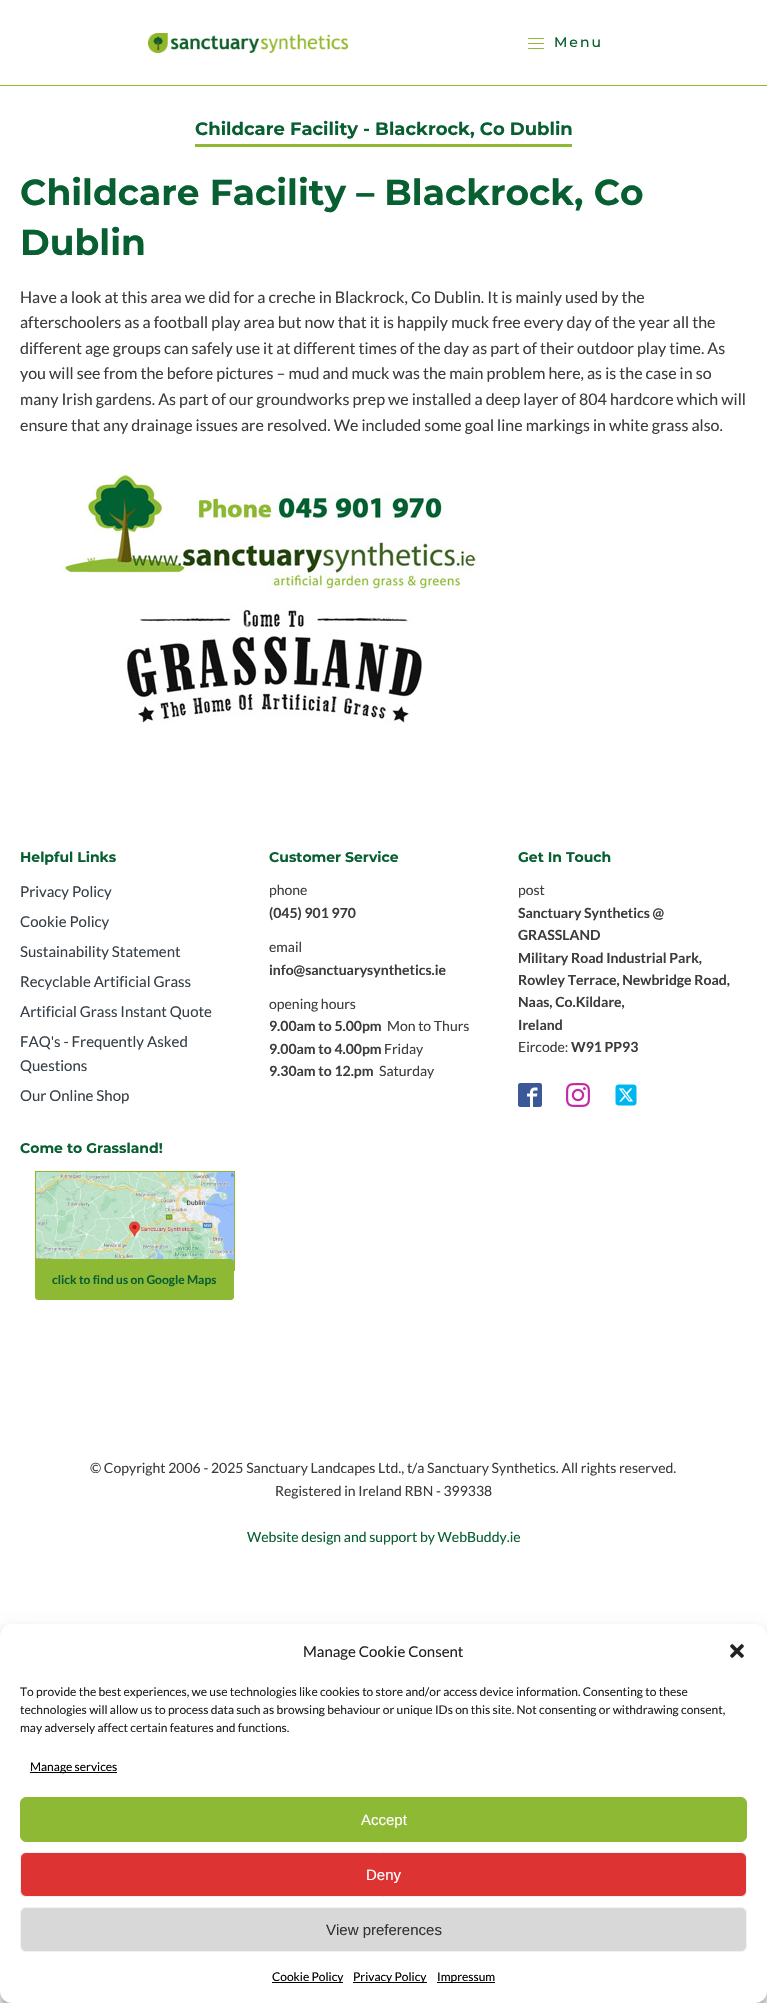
#include "include/core/SkBlurTypes.h"
#include "include/core/SkCanvas.h"
#include "include/core/SkData.h"
#include "include/core/SkFont.h"
#include "include/core/SkFontMgr.h"
#include "include/core/SkImage.h"
#include "include/core/SkMaskFilter.h"
#include "include/core/SkPaint.h"
#include "include/core/SkPathBuilder.h"
#include "include/core/SkTextBlob.h"
#include "include/effects/SkDashPathEffect.h"
#include "include/effects/SkGradientShader.h"
#include "include/utils/SkParsePath.h"

extern sk_sp<SkFontMgr> fontMgr;

void draw(SkCanvas* canvas) {
  SkPaint p;
  p.setAntiAlias(true);
  auto spacedText = [&](const char* s, float x, float y, const SkFont& font, const SkPaint& ink, float letter, float word) {
    std::vector<SkGlyphID> glyphs(font.countText(s, strlen(s), SkTextEncoding::kUTF8));
    std::vector<float> xs(glyphs.size());
    font.textToGlyphs(s, strlen(s), SkTextEncoding::kUTF8, glyphs);
    font.getXPos(glyphs, xs, x);
    float extra = 0;
    for (size_t i = 0; i < glyphs.size(); i++) {
      xs[i] += extra;
      extra += letter + word * (glyphs[i] == font.unicharToGlyph(' '));
    }
    canvas->drawTextBlob(SkTextBlob::MakeFromPosHGlyphs(glyphs, xs, y, font), 0, 0, ink);
  };
  canvas->clear(SK_ColorWHITE);
  p.setColor(SkColorSetRGB(142, 185, 53));
  canvas->drawRect(SkRect::MakeLTRB(0, 85, 767, 86), p);
  canvas->drawImageRect(SkImages::DeferredFromEncodedData(SkData::MakeFromFileName("images/1.png")), SkRect::MakeLTRB(148, 33, 348, 53), SkSamplingOptions());
  canvas->drawImageRect(SkImages::DeferredFromEncodedData(SkData::MakeFromFileName("images/2.png")), SkRect::MakeLTRB(528, 38, 544, 49), SkSamplingOptions());
  canvas->drawRect(SkRect::MakeLTRB(195, 144, 572, 147), p);
  canvas->drawImageRect(SkImages::DeferredFromEncodedData(SkData::MakeFromFileName("images/3.png")), SkRect::MakeLTRB(60, 469, 476, 725), SkSamplingOptions());
  canvas->drawImageRect(SkImages::DeferredFromEncodedData(SkData::MakeFromFileName("images/4.png")), SkRect::MakeLTRB(518, 1083, 542, 1107), SkSamplingOptions());
  canvas->drawImageRect(SkImages::DeferredFromEncodedData(SkData::MakeFromFileName("images/5.png")), SkRect::MakeLTRB(566, 1083, 590, 1107), SkSamplingOptions());
  canvas->drawImageRect(SkImages::DeferredFromEncodedData(SkData::MakeFromFileName("images/6.png")), SkRect::MakeLTRB(615, 1084, 637, 1106), SkSamplingOptions());
  p.setStyle(SkPaint::kStroke_Style);
  p.setStrokeWidth(1);
  canvas->drawRect(SkRect::MakeLTRB(35.5f, 1171.5f, 234.5f, 1270.5f), p);
  canvas->drawImageRect(SkImages::DeferredFromEncodedData(SkData::MakeFromFileName("images/7.png")), SkRect::MakeLTRB(36, 1172, 234, 1262), SkSamplingOptions());
  p.setStyle(SkPaint::kFill_Style);
  canvas->drawRoundRect(SkRect::MakeLTRB(35.5f, 1259.5f, 233.5f, 1299.5f), 2.5f, 2.5f, p);
  p.setStyle(SkPaint::kStroke_Style);
  canvas->drawRoundRect(SkRect::MakeLTRB(35.5f, 1259.5f, 233.5f, 1299.5f), 2.5f, 2.5f, p);
  p.setStyle(SkPaint::kFill_Style);
  p.setColor(SkColorSetARGB(59, 0, 0, 0));
  p.setMaskFilter(SkMaskFilter::MakeBlur(kNormal_SkBlurStyle, 3));
  canvas->drawRoundRect(SkRect::MakeLTRB(0, 1630, 767, 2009), 12, 12, p);
  p.setMaskFilter(nullptr);
  p.setColor(SkColorSetARGB(48, 0, 0, 0));
  p.setMaskFilter(SkMaskFilter::MakeBlur(kNormal_SkBlurStyle, 10));
  canvas->drawRoundRect(SkRect::MakeLTRB(0, 1634, 767, 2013), 12, 12, p);
  p.setMaskFilter(nullptr);
  p.setColor(SK_ColorWHITE);
  canvas->drawRoundRect(SkRect::MakeLTRB(0, 1624, 767, 2003), 12, 12, p);
  canvas->drawImageRect(SkImages::DeferredFromEncodedData(SkData::MakeFromFileName("images/8.png")), SkRect::MakeLTRB(730, 1644, 744, 1658), SkSamplingOptions());
  p.setColor(SK_ColorBLACK);
  canvas->drawRect(SkRect::MakeLTRB(30, 1772, 117, 1773), p);
  p.setColor(SkColorSetRGB(142, 185, 53));
  canvas->drawRoundRect(SkRect::MakeLTRB(20.5f, 1797.5f, 746.5f, 1841.5f), 5.5f, 5.5f, p);
  p.setStyle(SkPaint::kStroke_Style);
  canvas->drawRoundRect(SkRect::MakeLTRB(20.5f, 1797.5f, 746.5f, 1841.5f), 5.5f, 5.5f, p);
  p.setStyle(SkPaint::kFill_Style);
  p.setColor(SkColorSetRGB(221, 51, 51));
  canvas->drawRoundRect(SkRect::MakeLTRB(20.5f, 1852.5f, 746.5f, 1896.5f), 5.5f, 5.5f, p);
  p.setStyle(SkPaint::kStroke_Style);
  p.setColor(SkColorSetRGB(242, 242, 242));
  canvas->drawRoundRect(SkRect::MakeLTRB(20.5f, 1852.5f, 746.5f, 1896.5f), 5.5f, 5.5f, p);
  p.setStyle(SkPaint::kFill_Style);
  p.setColor(SkColorSetRGB(216, 216, 216));
  canvas->drawRoundRect(SkRect::MakeLTRB(20.5f, 1907.5f, 746.5f, 1951.5f), 5.5f, 5.5f, p);
  p.setStyle(SkPaint::kStroke_Style);
  p.setColor(SkColorSetRGB(242, 242, 242));
  canvas->drawRoundRect(SkRect::MakeLTRB(20.5f, 1907.5f, 746.5f, 1951.5f), 5.5f, 5.5f, p);
  p.setStyle(SkPaint::kFill_Style);
  p.setColor(SK_ColorBLACK);
  canvas->drawRect(SkRect::MakeLTRB(272, 1982, 343, 1983), p);
  canvas->drawRect(SkRect::MakeLTRB(353, 1982, 427, 1983), p);
  canvas->drawRect(SkRect::MakeLTRB(437, 1982, 495, 1983), p);
  SkFont font1(fontMgr->matchFamilyStyle("Montserrat", SkFontStyle(500, SkFontStyle::kNormal_Width, SkFontStyle::kUpright_Slant)), 14);
  font1.setSubpixel(true);
  p.setColor(SkColorSetRGB(8, 95, 49));
  spacedText("Menu", 554, 47, font1, p, 2, 0);
  SkFont font2(fontMgr->matchFamilyStyle("Montserrat", SkFontStyle::Bold()), 18);
  font2.setSubpixel(true);
  canvas->drawString("Childcare Facility - Blackrock, Co Dublin", 195, 135, font2, p);
  SkFont font3(fontMgr->matchFamilyStyle("Montserrat", SkFontStyle::Bold()), 36);
  font3.setSubpixel(true);
  canvas->drawString("Childcare Facility – Blackrock, Co", 20, 205, font3, p);
  canvas->drawString("Dublin", 20, 255, font3, p);
  SkFont font4(fontMgr->matchFamilyStyle("Lato", SkFontStyle::Normal()), 16);
  font4.setSubpixel(true);
  p.setColor(SkColorSetRGB(61, 61, 61));
  canvas->drawString("Have a look at this area we did for a creche in Blackrock, Co Dublin. It is mainly used by the", 20, 303, font4, p);
  canvas->drawString("afterschoolers as a football play area but now that it is happily muck free every day of the year all the", 20, 328, font4, p);
  canvas->drawString("different age groups can safely use it at different times of the day as part of their outdoor play time. As", 20, 354, font4, p);
  canvas->drawString("you will see from the before pictures – mud and muck was the main problem here, as is the case in so", 20, 379, font4, p);
  canvas->drawString("many Irish gardens. As part of our groundworks prep we installed a deep layer of 804 hardcore which will", 20, 405, font4, p);
  canvas->drawString("ensure that any drainage issues are resolved. We included some goal line markings in white grass also.", 20, 431, font4, p);
  SkFont font5(fontMgr->matchFamilyStyle("Montserrat", SkFontStyle::Bold()), 14);
  font5.setSubpixel(true);
  p.setColor(SkColorSetRGB(8, 95, 49));
  canvas->drawString("Helpful Links", 20, 862, font5, p);
  SkFont font6(fontMgr->matchFamilyStyle("Lato", SkFontStyle::Normal()), 15);
  font6.setSubpixel(true);
  p.setColor(SkColorSetRGB(55, 64, 71));
  canvas->drawString("Privacy Policy", 20, 897, font6, p);
  canvas->drawString("Cookie Policy", 20, 927, font6, p);
  canvas->drawString("Sustainability Statement", 20, 957, font6, p);
  canvas->drawString("Recyclable Artificial Grass", 20, 987, font6, p);
  canvas->drawString("Artificial Grass Instant Quote", 20, 1017, font6, p);
  canvas->drawString("FAQ's - Frequently Asked", 20, 1047, font6, p);
  canvas->drawString("Questions", 20, 1071, font6, p);
  canvas->drawString("Our Online Shop", 20, 1101, font6, p);
  p.setColor(SkColorSetRGB(8, 95, 49));
  canvas->drawString("Customer Service", 269, 862, font5, p);
  SkFont font7(fontMgr->matchFamilyStyle("Lato", SkFontStyle::Normal()), 14);
  font7.setSubpixel(true);
  p.setColor(SkColorSetRGB(61, 61, 61));
  canvas->drawString("phone", 269, 895, font7, p);
  SkFont font8(fontMgr->matchFamilyStyle("Lato", SkFontStyle::Bold()), 14);
  font8.setSubpixel(true);
  canvas->drawString("(045) 901 970", 269, 918, font8, p);
  canvas->drawString("email", 269, 952, font7, p);
  canvas->drawString("info@sanctuarysynthetics.ie", 269, 975, font8, p);
  canvas->drawString("opening hours", 269, 1009, font7, p);
  canvas->drawString("9.00am to 5.00pm", 269, 1031, font8, p);
  canvas->drawString("Mon to Thurs", 387, 1031, font7, p);
  canvas->drawString("9.00am to 4.00pm", 269, 1054, font8, p);
  canvas->drawString("Friday", 384, 1054, font7, p);
  canvas->drawString("9.30am to 12.pm", 269, 1076, font8, p);
  canvas->drawString("Saturday", 379, 1076, font7, p);
  p.setColor(SkColorSetRGB(8, 95, 49));
  canvas->drawString("Get In Touch", 518, 862, font5, p);
  p.setColor(SkColorSetRGB(61, 61, 61));
  canvas->drawString("post", 518, 895, font7, p);
  canvas->drawString("Sanctuary Synthetics @", 518, 918, font8, p);
  canvas->drawString("GRASSLAND", 518, 940, font8, p);
  canvas->drawString("Military Road Industrial Park,", 518, 963, font8, p);
  canvas->drawString("Rowley Terrace, Newbridge Road,", 518, 985, font8, p);
  canvas->drawString("Naas, Co.Kildare,", 518, 1007, font8, p);
  canvas->drawString("Ireland", 518, 1030, font8, p);
  canvas->drawString("Eircode:", 518, 1052, font7, p);
  canvas->drawString("W91 PP93", 571, 1052, font8, p);
  p.setColor(SkColorSetRGB(8, 95, 49));
  canvas->drawString("Come to Grassland!", 20, 1153, font5, p);
  SkFont font9(fontMgr->matchFamilyStyle("Lato", SkFontStyle::Bold()), 12);
  font9.setSubpixel(true);
  canvas->drawString("click to find us on Google Maps", 52, 1284, font9, p);
  p.setColor(SkColorSetRGB(61, 61, 61));
  canvas->drawString("© Copyright 2006 - 2025 Sanctuary Landcapes Ltd., t/a Sanctuary Synthetics. All rights reserved.", 90, 1473, font7, p);
  canvas->drawString("Registered in Ireland RBN - 399338", 275, 1496, font7, p);
  p.setColor(SkColorSetRGB(8, 95, 49));
  canvas->drawString("Website design and support by WebBuddy.ie", 247, 1542, font7, p);
  p.setColor(SkColorSetRGB(34, 34, 34));
  canvas->drawString("Manage Cookie Consent", 303, 1657, font6, p);
  SkFont font10(fontMgr->matchFamilyStyle("Lato", SkFontStyle::Normal()), 12);
  font10.setSubpixel(true);
  canvas->drawString("To provide the best experiences, we use technologies like cookies to store and/or access device information. Consenting to these", 20, 1696, font10, p);
  canvas->drawString("technologies will allow us to process data such as browsing behaviour or unique IDs on this site. Not consenting or withdrawing consent,", 20, 1714, font10, p);
  canvas->drawString("may adversely affect certain features and functions.", 20, 1732, font10, p);
  p.setColor(SK_ColorBLACK);
  canvas->drawString("Manage services", 30, 1771, font10, p);
  SkFont font11(fontMgr->matchFamilyStyle("Liberation Sans", SkFontStyle::Normal()), 15);
  font11.setSubpixel(true);
  p.setColor(SK_ColorWHITE);
  canvas->drawString("Accept", 361, 1825, font11, p);
  canvas->drawString("Deny", 366, 1880, font11, p);
  p.setColor(SkColorSetRGB(51, 51, 51));
  canvas->drawString("View preferences", 326, 1935, font11, p);
  p.setColor(SK_ColorBLACK);
  canvas->drawString("Cookie Policy", 272, 1981, font10, p);
  canvas->drawString("Privacy Policy", 353, 1981, font10, p);
  canvas->drawString("Impressum", 437, 1981, font10, p);
}
